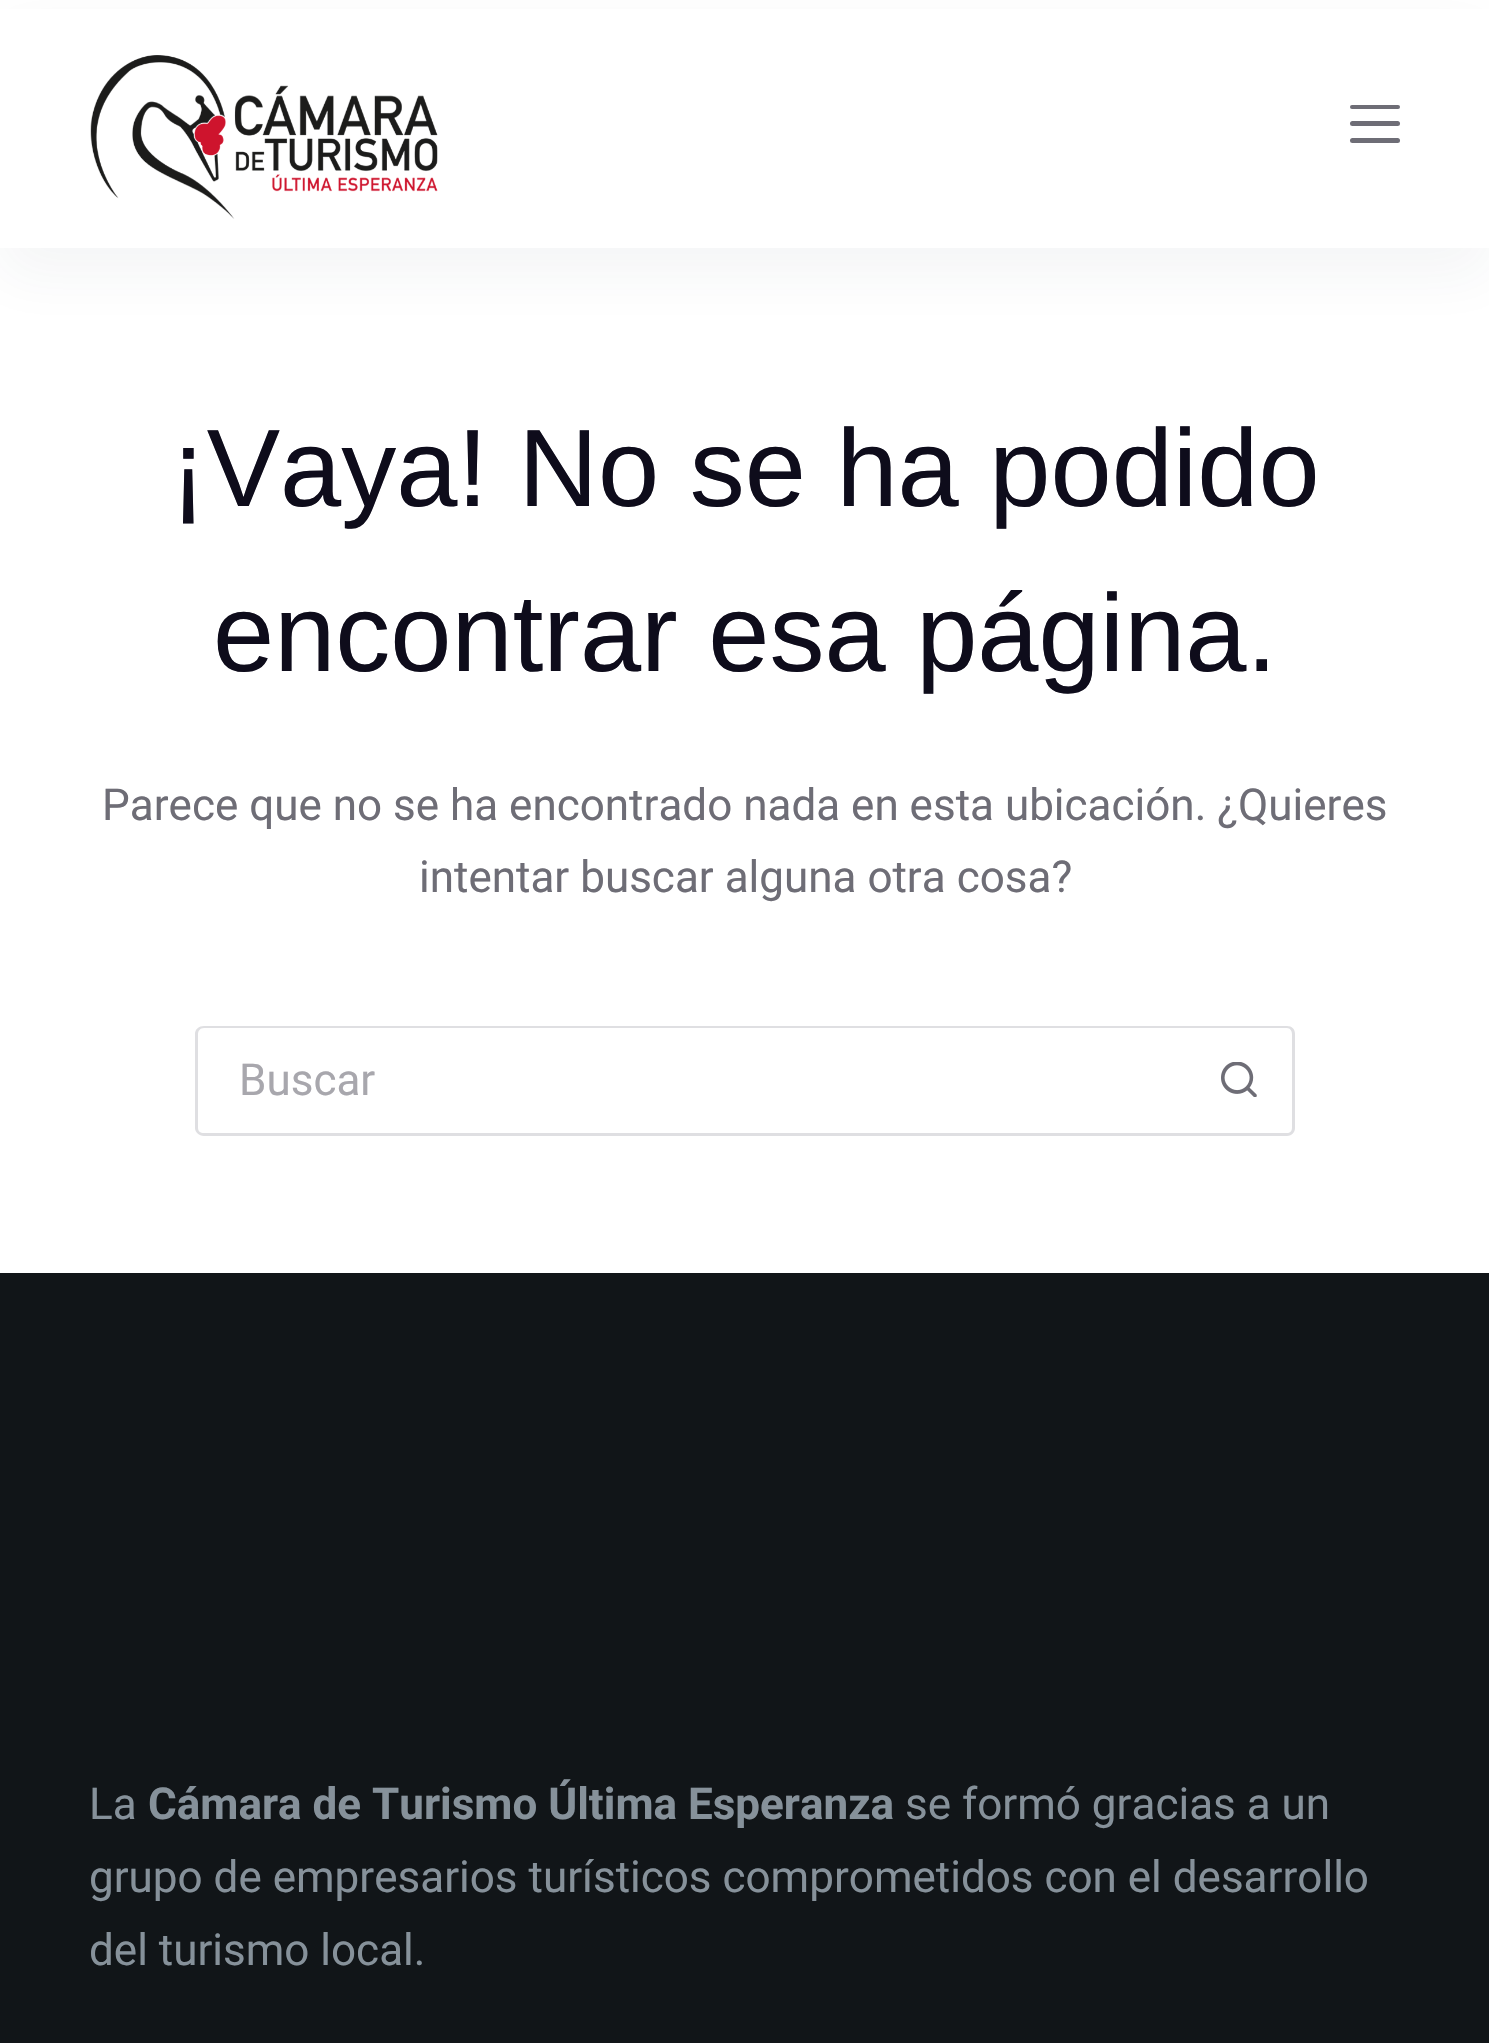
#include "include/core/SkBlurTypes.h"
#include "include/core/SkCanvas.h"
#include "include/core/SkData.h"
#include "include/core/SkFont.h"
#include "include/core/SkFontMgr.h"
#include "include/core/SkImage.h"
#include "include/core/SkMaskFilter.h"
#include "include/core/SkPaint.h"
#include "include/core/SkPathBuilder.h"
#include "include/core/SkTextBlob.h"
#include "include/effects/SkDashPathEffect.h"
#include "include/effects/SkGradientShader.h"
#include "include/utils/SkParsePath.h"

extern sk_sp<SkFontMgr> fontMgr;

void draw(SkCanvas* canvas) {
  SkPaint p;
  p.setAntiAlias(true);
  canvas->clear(SK_ColorWHITE);
  p.setColor(SkColorSetARGB(13, 43, 61, 79));
  p.setMaskFilter(SkMaskFilter::MakeBlur(kNormal_SkBlurStyle, 27.5f));
  canvas->drawRect(SkRect::MakeLTRB(0, 28, 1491, 275), p);
  p.setMaskFilter(nullptr);
  p.setColor(SK_ColorWHITE);
  canvas->drawRect(SkRect::MakeLTRB(0, 9, 1489, 248), p);
  canvas->drawImageRect(SkImages::DeferredFromEncodedData(SkData::MakeFromFileName("images/1.png")), SkRect::MakeLTRB(90, 55, 438, 219), SkSamplingOptions());
  p.setColor(SkColorSetRGB(110, 109, 118));
  canvas->drawRoundRect(SkRect::MakeLTRB(1350, 105, 1400, 109), 2, 2, p);
  canvas->drawRoundRect(SkRect::MakeLTRB(1350, 121, 1400, 126), 2.5f, 2.5f, p);
  canvas->drawRoundRect(SkRect::MakeLTRB(1350, 138, 1400, 143), 2.5f, 2.5f, p);
  p.setColor(SkColorSetRGB(223, 223, 226));
  canvas->drawPath(SkPathBuilder(SkPathFillType::kEvenOdd).moveTo(204, 1026).lineTo(1185, 1026).lineTo(1185, 1136).lineTo(204, 1136).cubicTo(199, 1136, 195, 1132, 195, 1128).lineTo(195, 1034).cubicTo(195, 1029, 199, 1026, 204, 1026).close().moveTo(204, 1028).lineTo(1185, 1028).lineTo(1185, 1133).lineTo(204, 1133).cubicTo(200, 1133, 198, 1131, 198, 1128).lineTo(198, 1034).cubicTo(198, 1031, 200, 1028, 204, 1028).close().detach(), p);
  canvas->drawPath(SkPathBuilder(SkPathFillType::kEvenOdd).moveTo(1185, 1026).lineTo(1287, 1026).cubicTo(1292, 1026, 1295, 1029, 1295, 1034).lineTo(1295, 1128).cubicTo(1295, 1132, 1292, 1136, 1287, 1136).lineTo(1185, 1136).close().moveTo(1185, 1028).lineTo(1287, 1028).cubicTo(1290, 1028, 1292, 1031, 1292, 1034).lineTo(1292, 1128).cubicTo(1292, 1131, 1290, 1133, 1287, 1133).lineTo(1185, 1133).close().detach(), p);
  canvas->drawImageRect(SkImages::DeferredFromEncodedData(SkData::MakeFromFileName("images/2.png")), SkRect::MakeLTRB(1221, 1062, 1257, 1097), SkSamplingOptions());
  p.setColor(SkColorSetRGB(17, 21, 24));
  canvas->drawRect(SkRect::MakeLTRB(0, 1273, 1489, 2043), p);
  SkFont font1(fontMgr->matchFamilyStyle("Liberation Sans", SkFontStyle::Normal()), 110);
  font1.setSubpixel(true);
  p.setColor(SkColorSetRGB(14, 12, 27));
  canvas->drawString("¡Vaya! No se ha podido", 170, 506, font1, p);
  canvas->drawString("encontrar esa página.", 213, 671, font1, p);
  SkFont font2(fontMgr->matchFamilyStyle("Roboto", SkFontStyle::Normal()), 44);
  font2.setSubpixel(true);
  p.setColor(SkColorSetRGB(110, 109, 118));
  canvas->drawString("Parece que no se ha encontrado nada en esta ubicación. ¿Quieres", 102, 820, font2, p);
  canvas->drawString("intentar buscar alguna otra cosa?", 419, 892, font2, p);
  p.setColor(SkColorSetRGB(168, 167, 173));
  canvas->drawString("Buscar", 239, 1095, font2, p);
  p.setColor(SkColorSetRGB(134, 145, 154));
  canvas->drawString("La", 89, 1819, font2, p);
  SkFont font3(fontMgr->matchFamilyStyle("Roboto", SkFontStyle::Bold()), 44);
  font3.setSubpixel(true);
  canvas->drawString("Cámara de Turismo Última Esperanza", 148, 1819, font3, p);
  canvas->drawString("se formó gracias a un", 905, 1819, font2, p);
  canvas->drawString("grupo de empresarios turísticos comprometidos con el desarrollo", 89, 1892, font2, p);
  canvas->drawString("del turismo local.", 89, 1965, font2, p);
}
